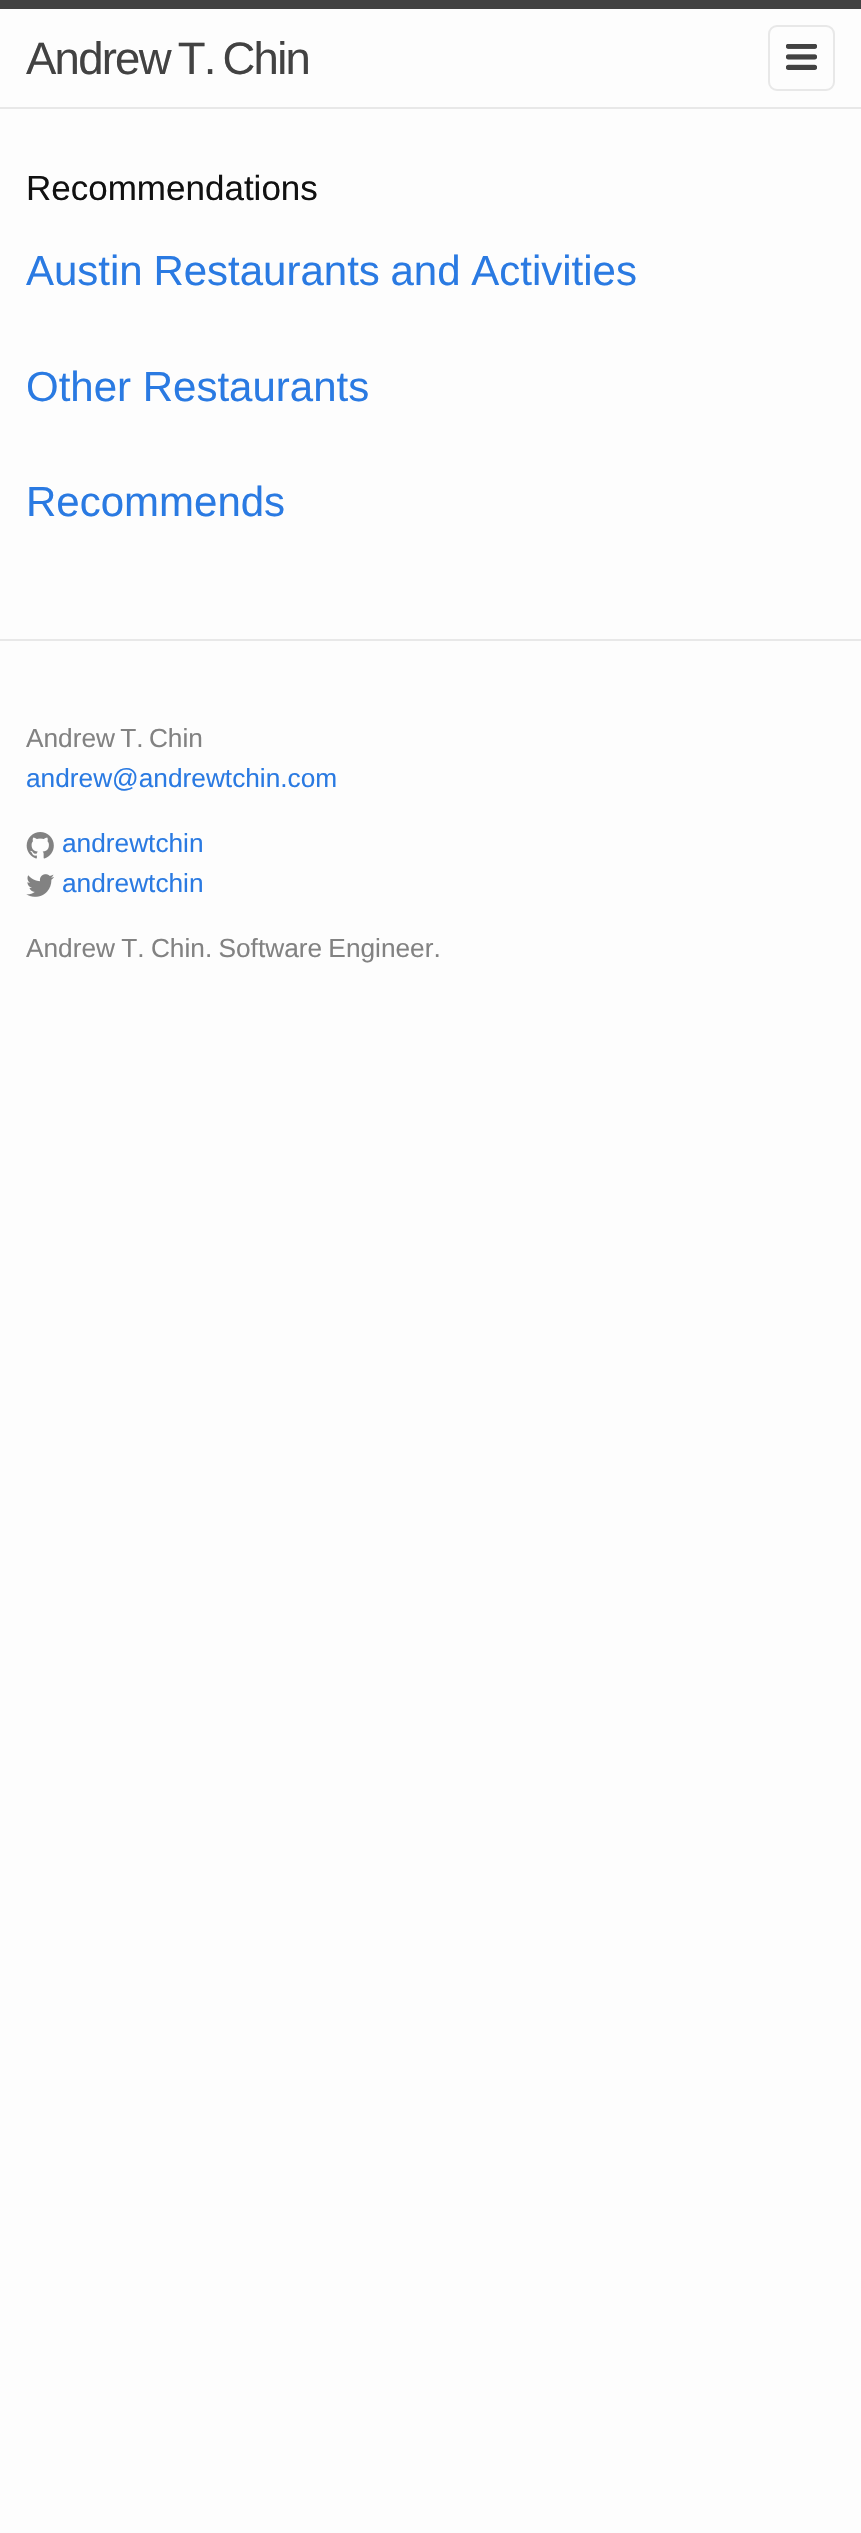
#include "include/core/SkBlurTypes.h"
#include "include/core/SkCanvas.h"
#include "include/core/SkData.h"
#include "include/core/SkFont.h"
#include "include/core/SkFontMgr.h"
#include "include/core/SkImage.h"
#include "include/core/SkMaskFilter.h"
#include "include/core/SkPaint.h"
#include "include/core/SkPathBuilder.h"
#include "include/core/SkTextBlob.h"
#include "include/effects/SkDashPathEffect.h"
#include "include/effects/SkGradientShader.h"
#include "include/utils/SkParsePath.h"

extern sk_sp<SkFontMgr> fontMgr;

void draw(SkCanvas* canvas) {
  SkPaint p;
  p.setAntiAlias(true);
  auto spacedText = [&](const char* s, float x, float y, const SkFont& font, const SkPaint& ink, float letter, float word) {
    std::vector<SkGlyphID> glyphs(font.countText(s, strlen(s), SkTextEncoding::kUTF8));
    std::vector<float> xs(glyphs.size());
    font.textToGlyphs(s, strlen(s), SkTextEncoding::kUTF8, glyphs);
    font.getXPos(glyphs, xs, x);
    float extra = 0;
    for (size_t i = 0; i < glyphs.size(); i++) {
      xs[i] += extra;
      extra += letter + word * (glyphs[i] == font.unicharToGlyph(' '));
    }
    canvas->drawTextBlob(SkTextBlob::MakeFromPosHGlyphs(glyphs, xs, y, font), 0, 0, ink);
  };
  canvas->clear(SkColorSetRGB(253, 253, 253));
  p.setColor(SkColorSetRGB(66, 66, 66));
  canvas->drawRect(SkRect::MakeLTRB(0, 0, 861, 9), p);
  p.setColor(SkColorSetRGB(232, 232, 232));
  canvas->drawRect(SkRect::MakeLTRB(0, 107, 861, 109), p);
  p.setStyle(SkPaint::kStroke_Style);
  p.setStrokeWidth(2);
  canvas->drawRoundRect(SkRect::MakeLTRB(769, 26, 834, 90), 8, 8, p);
  canvas->drawImageRect(SkImages::DeferredFromEncodedData(SkData::MakeFromFileName("images/1.png")), SkRect::MakeLTRB(786, 44, 817, 70), SkSamplingOptions());
  p.setStyle(SkPaint::kFill_Style);
  canvas->drawRect(SkRect::MakeLTRB(0, 639, 861, 641), p);
  canvas->drawImageRect(SkImages::DeferredFromEncodedData(SkData::MakeFromFileName("images/2.png")), SkRect::MakeLTRB(26, 832, 54, 859), SkSamplingOptions());
  canvas->drawImageRect(SkImages::DeferredFromEncodedData(SkData::MakeFromFileName("images/3.png")), SkRect::MakeLTRB(26, 874, 54, 897), SkSamplingOptions());
  SkFont font1(fontMgr->matchFamilyStyle("Liberation Sans", SkFontStyle::Normal()), 45.5f);
  font1.setSubpixel(true);
  p.setColor(SkColorSetRGB(66, 66, 66));
  spacedText("Andrew T. Chin", 26, 74, font1, p, -1.75f, -3);
  SkFont font2(fontMgr->matchFamilyStyle("Liberation Sans", SkFontStyle::Normal()), 35);
  font2.setSubpixel(true);
  p.setColor(SkColorSetRGB(17, 17, 17));
  canvas->drawString("Recommendations", 26, 200, font2, p);
  SkFont font3(fontMgr->matchFamilyStyle("Liberation Sans", SkFontStyle::Normal()), 42);
  font3.setSubpixel(true);
  p.setColor(SkColorSetRGB(42, 122, 226));
  spacedText("Austin Restaurants and Activities", 26, 285, font3, p, 0, -1);
  canvas->drawString("Other Restaurants", 26, 401, font3, p);
  canvas->drawString("Recommends", 26, 516, font3, p);
  SkFont font4(fontMgr->matchFamilyStyle("Liberation Sans", SkFontStyle::Normal()), 26.25f);
  font4.setSubpixel(true);
  p.setColor(SkColorSetRGB(130, 130, 130));
  spacedText("Andrew T. Chin", 26, 747, font4, p, 0, -2);
  p.setColor(SkColorSetRGB(42, 122, 226));
  canvas->drawString("andrew@andrewtchin.com", 26, 787, font4, p);
  canvas->drawString("andrewtchin", 62, 852, font4, p);
  canvas->drawString("andrewtchin", 62, 892, font4, p);
  p.setColor(SkColorSetRGB(130, 130, 130));
  spacedText("Andrew T. Chin. Software Engineer.", 26, 957, font4, p, 0, -1);
}
